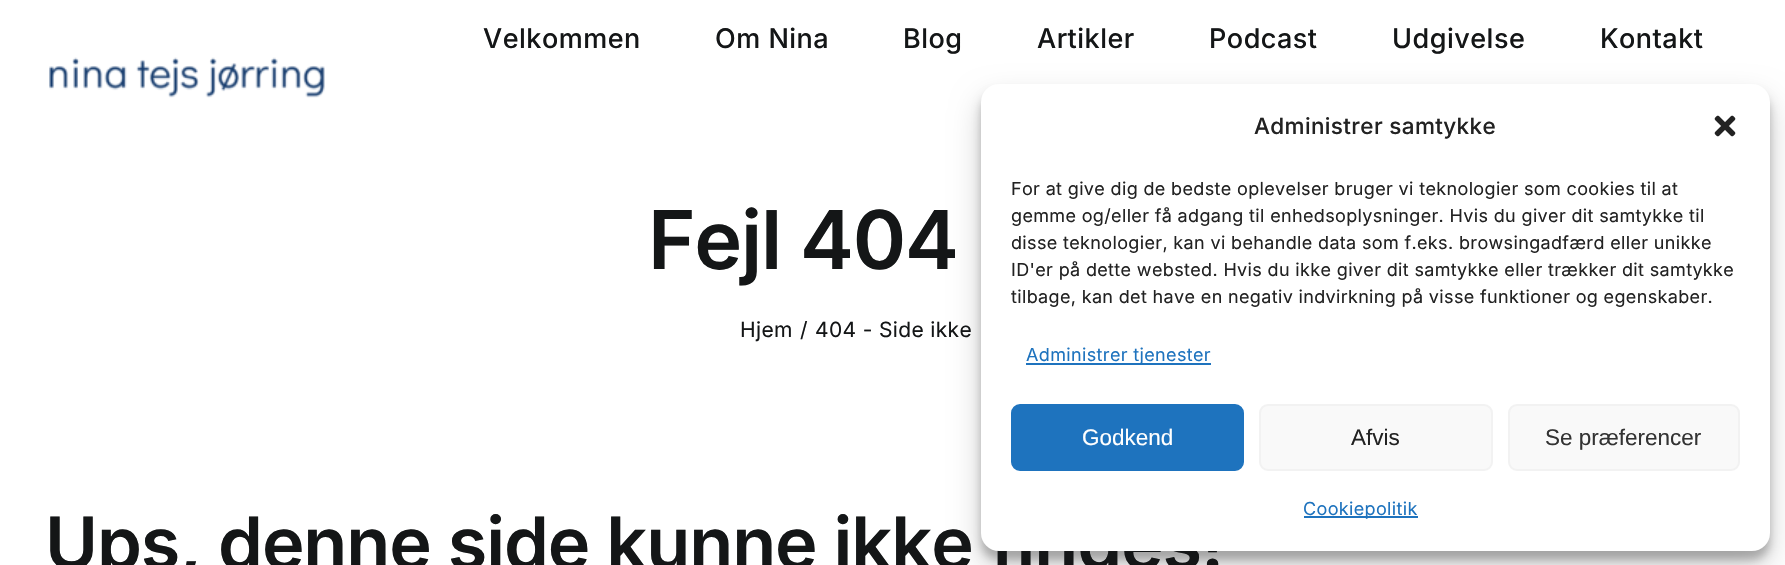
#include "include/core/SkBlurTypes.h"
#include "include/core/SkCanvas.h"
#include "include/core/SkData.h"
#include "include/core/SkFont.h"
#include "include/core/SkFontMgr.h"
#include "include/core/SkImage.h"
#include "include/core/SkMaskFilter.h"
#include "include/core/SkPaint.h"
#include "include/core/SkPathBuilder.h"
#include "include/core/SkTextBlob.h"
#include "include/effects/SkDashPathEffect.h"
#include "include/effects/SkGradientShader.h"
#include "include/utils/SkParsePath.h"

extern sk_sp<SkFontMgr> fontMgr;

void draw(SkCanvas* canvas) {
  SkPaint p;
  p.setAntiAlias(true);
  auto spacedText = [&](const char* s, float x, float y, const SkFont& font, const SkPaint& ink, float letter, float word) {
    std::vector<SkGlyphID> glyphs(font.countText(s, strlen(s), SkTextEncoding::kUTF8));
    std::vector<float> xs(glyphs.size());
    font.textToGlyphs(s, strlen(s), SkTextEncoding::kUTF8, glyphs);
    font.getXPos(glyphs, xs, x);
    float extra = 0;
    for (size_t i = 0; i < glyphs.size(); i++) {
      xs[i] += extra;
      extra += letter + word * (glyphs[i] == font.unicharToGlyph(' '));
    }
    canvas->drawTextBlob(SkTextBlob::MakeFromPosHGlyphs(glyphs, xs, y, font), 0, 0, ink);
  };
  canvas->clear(SK_ColorWHITE);
  canvas->drawImageRect(SkImages::DeferredFromEncodedData(SkData::MakeFromFileName("images/1.png")), SkRect::MakeLTRB(49, 57, 325, 98), SkSamplingOptions());
  p.setColor(SkColorSetARGB(59, 0, 0, 0));
  p.setMaskFilter(SkMaskFilter::MakeBlur(kNormal_SkBlurStyle, 4.5f));
  canvas->drawRoundRect(SkRect::MakeLTRB(981, 93, 1770, 560), 18, 18, p);
  p.setMaskFilter(nullptr);
  p.setColor(SkColorSetARGB(48, 0, 0, 0));
  p.setMaskFilter(SkMaskFilter::MakeBlur(kNormal_SkBlurStyle, 15));
  canvas->drawRoundRect(SkRect::MakeLTRB(981, 99, 1770, 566), 18, 18, p);
  p.setMaskFilter(nullptr);
  SkFont font1(fontMgr->matchFamilyStyle("Inter", SkFontStyle(500, SkFontStyle::kNormal_Width, SkFontStyle::kUpright_Slant)), 27);
  font1.setSubpixel(true);
  p.setColor(SkColorSetRGB(20, 22, 23));
  spacedText("Velkommen", 483, 48, font1, p, 0.5f, 0);
  spacedText("Om Nina", 715, 48, font1, p, 0.5f, 0);
  spacedText("Blog", 903, 48, font1, p, 0.5f, 0);
  spacedText("Artikler", 1037, 48, font1, p, 0.5f, 0);
  spacedText("Podcast", 1209, 48, font1, p, 0.5f, 0);
  spacedText("Udgivelse", 1392, 48, font1, p, 0.5f, 0);
  spacedText("Kontakt", 1600, 48, font1, p, 0.5f, 0);
  SkFont font2(fontMgr->matchFamilyStyle("Inter", SkFontStyle(600, SkFontStyle::kNormal_Width, SkFontStyle::kUpright_Slant)), 81);
  font2.setSubpixel(true);
  spacedText("Fejl 404", 648, 269, font2, p, -1.25f, 0);
  SkFont font3(fontMgr->matchFamilyStyle("Inter", SkFontStyle::Normal()), 21);
  font3.setSubpixel(true);
  spacedText("Hjem", 740, 337, font3, p, 0.35f, 0);
  spacedText("/", 800, 337, font3, p, 0.35f, 0);
  spacedText("404 - Side ikke", 815, 337, font3, p, 0.35f, 0);
  SkFont font4(fontMgr->matchFamilyStyle("Inter", SkFontStyle(600, SkFontStyle::kNormal_Width, SkFontStyle::kUpright_Slant)), 72);
  font4.setSubpixel(true);
  spacedText("Ups, denne side kunne ikke findes!", 45, 569, font4, p, -1.1f, 0);
  p.setColor(SK_ColorWHITE);
  canvas->drawRoundRect(SkRect::MakeLTRB(981, 84, 1770, 551), 18, 18, p);
  SkFont font5(fontMgr->matchFamilyStyle("Inter", SkFontStyle(500, SkFontStyle::kNormal_Width, SkFontStyle::kUpright_Slant)), 22.5f);
  font5.setSubpixel(true);
  p.setColor(SkColorSetRGB(34, 34, 34));
  spacedText("Administrer samtykke", 1254, 134, font5, p, 0.35f, 0);
  canvas->drawImageRect(SkImages::DeferredFromEncodedData(SkData::MakeFromFileName("images/2.png")), SkRect::MakeLTRB(1714, 115, 1736, 137), SkSamplingOptions());
  SkFont font6(fontMgr->matchFamilyStyle("Inter", SkFontStyle::Normal()), 18);
  font6.setSubpixel(true);
  spacedText("For at give dig de bedste oplevelser bruger vi teknologier som cookies til at", 1011, 195, font6, p, 0.35f, 0);
  spacedText("gemme og/eller få adgang til enhedsoplysninger. Hvis du giver dit samtykke til", 1011, 222, font6, p, 0.35f, 0);
  spacedText("disse teknologier, kan vi behandle data som f.eks. browsingadfærd eller unikke", 1011, 249, font6, p, 0.35f, 0);
  spacedText("ID'er på dette websted. Hvis du ikke giver dit samtykke eller trækker dit samtykke", 1011, 276, font6, p, 0.35f, 0);
  spacedText("tilbage, kan det have en negativ indvirkning på visse funktioner og egenskaber.", 1011, 303, font6, p, 0.35f, 0);
  p.setColor(SkColorSetRGB(30, 115, 190));
  canvas->drawRect(SkRect::MakeLTRB(1026, 363, 1211, 365), p);
  spacedText("Administrer tjenester", 1026, 361, font6, p, 0.35f, 0);
  canvas->drawRoundRect(SkRect::MakeLTRB(1012, 405, 1243, 470), 8, 8, p);
  p.setStyle(SkPaint::kStroke_Style);
  p.setStrokeWidth(2);
  canvas->drawRoundRect(SkRect::MakeLTRB(1012, 405, 1243, 470), 8, 8, p);
  SkFont font7(fontMgr->matchFamilyStyle("Liberation Sans", SkFontStyle::Normal()), 22.5f);
  font7.setSubpixel(true);
  p.setStyle(SkPaint::kFill_Style);
  p.setColor(SK_ColorWHITE);
  canvas->drawString("Godkend", 1082, 445, font7, p);
  p.setColor(SkColorSetRGB(249, 249, 249));
  canvas->drawRoundRect(SkRect::MakeLTRB(1260, 405, 1492, 470), 8, 8, p);
  p.setStyle(SkPaint::kStroke_Style);
  p.setColor(SkColorSetRGB(242, 242, 242));
  canvas->drawRoundRect(SkRect::MakeLTRB(1260, 405, 1492, 470), 8, 8, p);
  p.setStyle(SkPaint::kFill_Style);
  p.setColor(SkColorSetRGB(34, 34, 34));
  canvas->drawString("Afvis", 1351, 445, font7, p);
  p.setColor(SkColorSetRGB(249, 249, 249));
  canvas->drawRoundRect(SkRect::MakeLTRB(1509, 405, 1739, 470), 8, 8, p);
  p.setStyle(SkPaint::kStroke_Style);
  p.setColor(SkColorSetRGB(242, 242, 242));
  canvas->drawRoundRect(SkRect::MakeLTRB(1509, 405, 1739, 470), 8, 8, p);
  p.setStyle(SkPaint::kFill_Style);
  p.setColor(SkColorSetRGB(51, 51, 51));
  canvas->drawString("Se præferencer", 1545, 445, font7, p);
  p.setColor(SkColorSetRGB(30, 115, 190));
  canvas->drawRect(SkRect::MakeLTRB(1304, 516, 1418, 518), p);
  spacedText("Cookiepolitik", 1303, 515, font6, p, 0.35f, 0);
}
